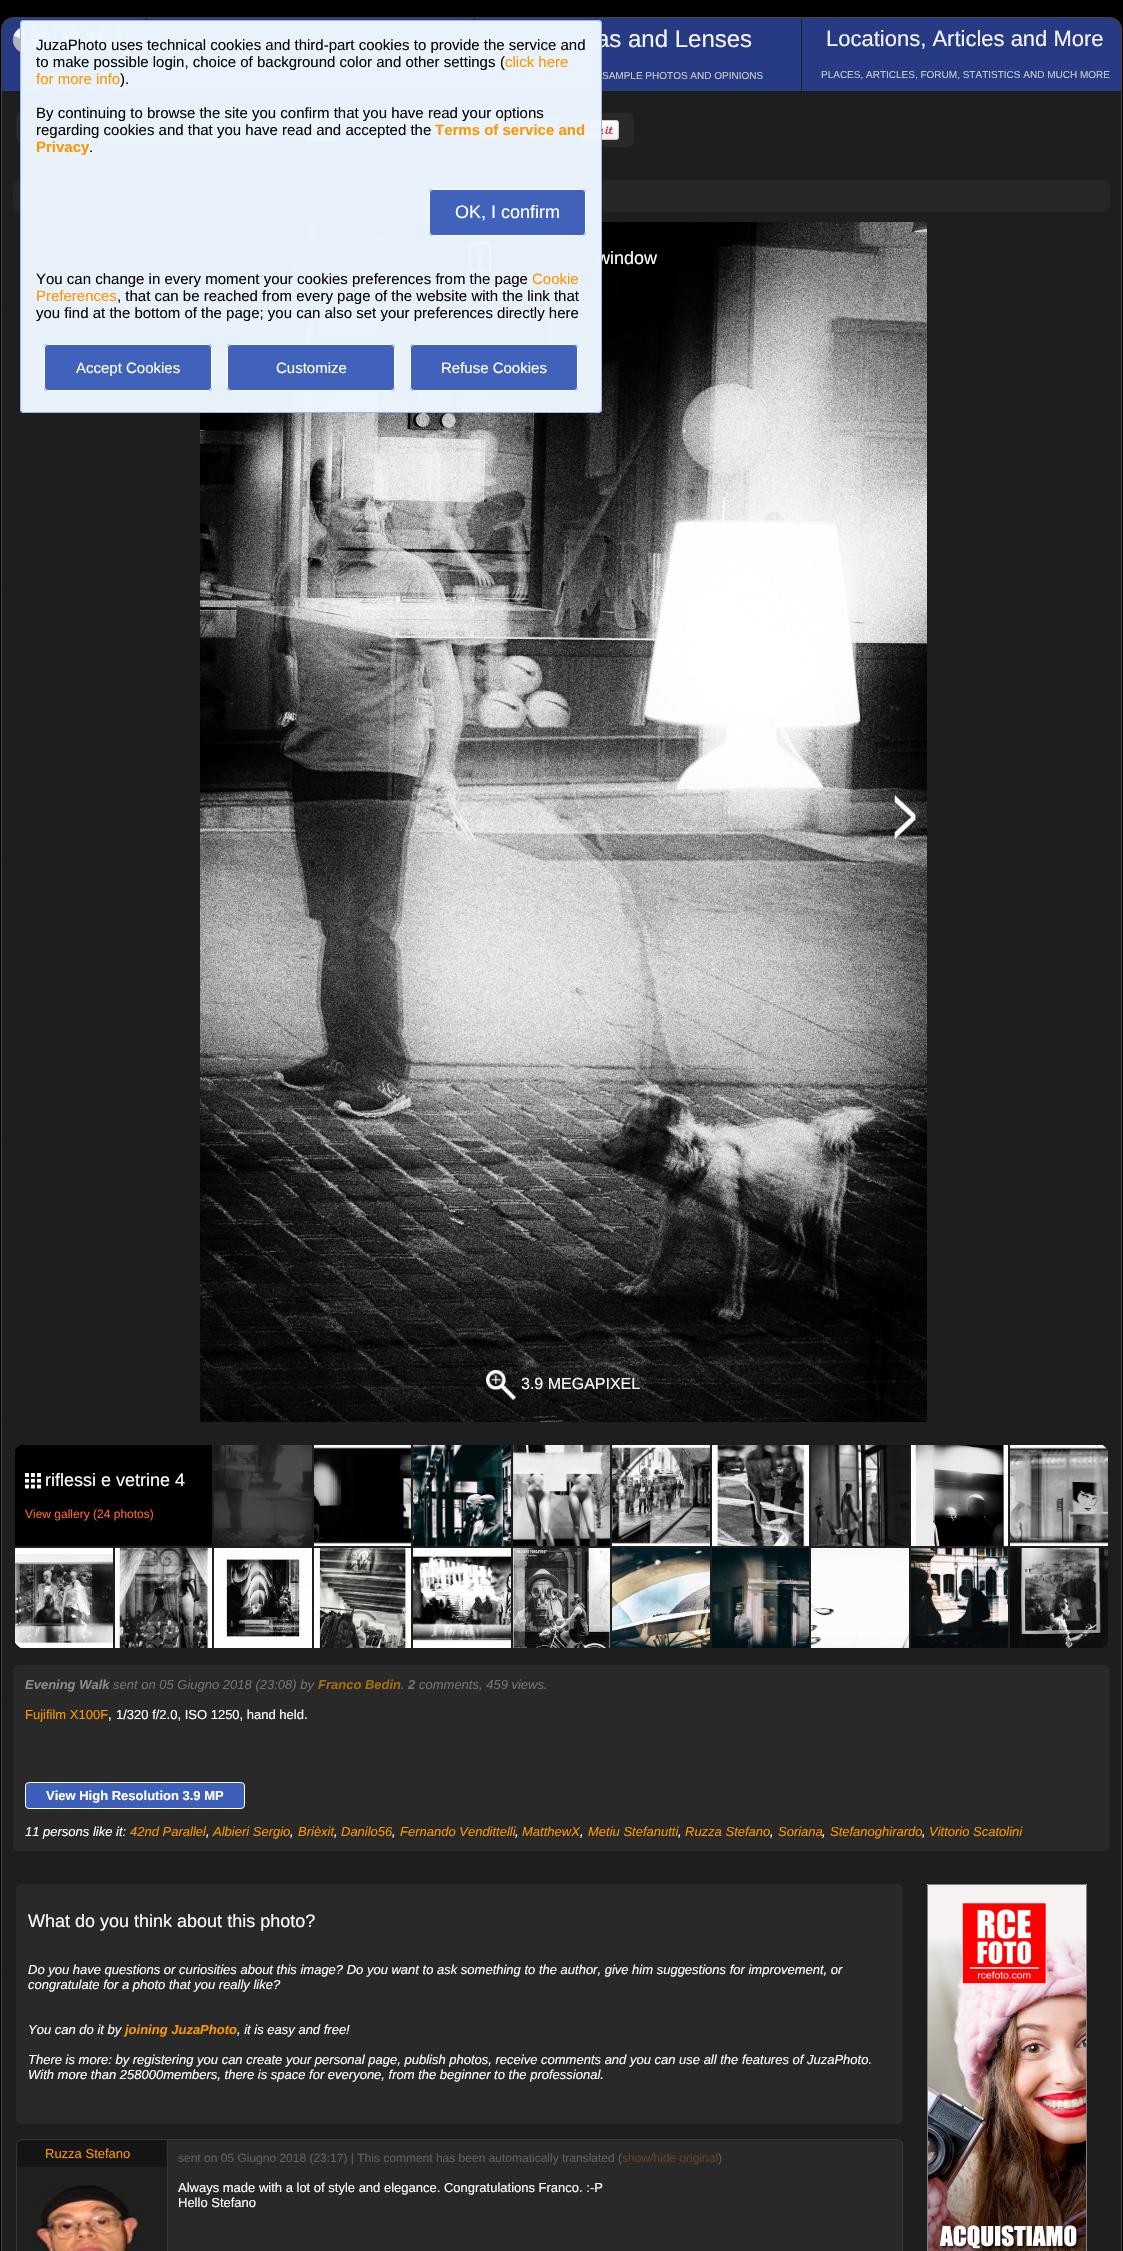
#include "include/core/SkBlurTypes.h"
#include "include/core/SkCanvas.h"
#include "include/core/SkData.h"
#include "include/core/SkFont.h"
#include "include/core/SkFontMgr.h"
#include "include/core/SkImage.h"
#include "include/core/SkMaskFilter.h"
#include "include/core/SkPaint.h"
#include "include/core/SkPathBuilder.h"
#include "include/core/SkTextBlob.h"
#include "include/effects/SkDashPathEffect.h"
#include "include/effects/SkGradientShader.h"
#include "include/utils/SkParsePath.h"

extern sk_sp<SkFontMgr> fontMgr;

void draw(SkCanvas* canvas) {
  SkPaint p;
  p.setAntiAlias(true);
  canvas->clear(SK_ColorBLACK);
  p.setColor(SkColorSetRGB(30, 30, 30));
  canvas->drawRoundRect(SkRect::MakeLTRB(1.5f, 17.5f, 1121.5f, 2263.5f), 11.5f, 11.5f, p);
  p.setStyle(SkPaint::kStroke_Style);
  p.setStrokeWidth(1);
  p.setColor(SkColorSetRGB(66, 66, 66));
  canvas->drawRoundRect(SkRect::MakeLTRB(1.5f, 17.5f, 1121.5f, 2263.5f), 11.5f, 11.5f, p);
  p.setStyle(SkPaint::kFill_Style);
  p.setColor(SkColorSetARGB(242, 39, 60, 137));
  canvas->drawPath(SkPathBuilder().moveTo(13, 18).lineTo(146, 18).lineTo(146, 91).lineTo(2, 91).lineTo(2, 29).cubicTo(2, 23, 7, 18, 13, 18).close().detach(), p);
  canvas->drawImageRect(SkImages::DeferredFromEncodedData(SkData::MakeFromFileName("images/1.png")), SkRect::MakeLTRB(12, 26, 133, 54), SkSamplingOptions());
  p.setColor(SkColorSetRGB(39, 59, 132));
  canvas->drawRect(SkRect::MakeLTRB(147, 18, 474, 91), p);
  canvas->drawRect(SkRect::MakeLTRB(475, 18, 801, 91), p);
  p.setColor(SkColorSetARGB(242, 39, 60, 137));
  canvas->drawPath(SkPathBuilder().moveTo(802, 18).lineTo(1110, 18).cubicTo(1116, 18, 1121, 23, 1121, 29).lineTo(1121, 91).lineTo(802, 91).close().detach(), p);
  p.setColor(SkColorSetRGB(41, 41, 41));
  canvas->drawPath(SkPathBuilder().moveTo(22, 112).lineTo(104, 112).lineTo(104, 142).lineTo(22, 142).cubicTo(18.5f, 142, 16, 139.5f, 16, 136).lineTo(16, 118).cubicTo(16, 114.5f, 18.5f, 112, 22, 112).close().detach(), p);
  canvas->drawImageRect(SkImages::DeferredFromEncodedData(SkData::MakeFromFileName("images/2.png")), SkRect::MakeLTRB(76, 119, 88, 130), SkSamplingOptions());
  p.setColor(SkColorSetRGB(0, 128, 0));
  canvas->drawPath(SkPathBuilder().moveTo(105, 112).lineTo(272, 112).cubicTo(275.5f, 112, 278, 114.5f, 278, 118).lineTo(278, 136).cubicTo(278, 139.5f, 275.5f, 142, 272, 142).lineTo(105, 142).close().detach(), p);
  p.setColor(SkColorSetRGB(41, 41, 41));
  canvas->drawRoundRect(SkRect::MakeLTRB(291, 113, 634, 147), 6, 6, p);
  p.setColor(SkColorSetRGB(234, 234, 234));
  canvas->drawRect(SkRect::MakeLTRB(305.5f, 117.5f, 335.5f, 140.5f), p);
  p.setStyle(SkPaint::kStroke_Style);
  p.setColor(SkColorSetRGB(187, 187, 187));
  canvas->drawRect(SkRect::MakeLTRB(305.5f, 117.5f, 335.5f, 140.5f), p);
  p.setStyle(SkPaint::kFill_Style);
  p.setColor(SkColorSetRGB(4, 4, 4));
  canvas->drawRect(SkRect::MakeLTRB(344.5f, 117.5f, 374.5f, 140.5f), p);
  p.setStyle(SkPaint::kStroke_Style);
  p.setColor(SkColorSetRGB(187, 187, 187));
  canvas->drawRect(SkRect::MakeLTRB(344.5f, 117.5f, 374.5f, 140.5f), p);
  p.setStyle(SkPaint::kFill_Style);
  p.setColor(SkColorSetRGB(129, 150, 211));
  canvas->drawRect(SkRect::MakeLTRB(382, 117, 460, 118), p);
  canvas->drawRect(SkRect::MakeLTRB(382, 139, 403, 140), p);
  canvas->drawRect(SkRect::MakeLTRB(382, 117, 383, 140), p);
  p.setColor(SkColorSetRGB(54, 80, 157));
  canvas->drawRect(SkRect::MakeLTRB(383, 118, 459, 139), p);
  p.setColor(SkColorSetRGB(129, 150, 211));
  canvas->drawRect(SkRect::MakeLTRB(459, 117, 460, 140), p);
  p.setColor(SkColorSetRGB(86, 144, 75));
  canvas->drawRect(SkRect::MakeLTRB(467.5f, 117.5f, 555.5f, 139.5f), p);
  p.setStyle(SkPaint::kStroke_Style);
  p.setColor(SkColorSetRGB(170, 204, 163));
  canvas->drawRect(SkRect::MakeLTRB(467.5f, 117.5f, 555.5f, 139.5f), p);
  p.setStyle(SkPaint::kFill_Style);
  p.setColor(SkColorSetRGB(129, 150, 211));
  canvas->drawRect(SkRect::MakeLTRB(403, 139, 460, 140), p);
  canvas->drawImageRect(SkImages::DeferredFromEncodedData(SkData::MakeFromFileName("images/3.png")), SkRect::MakeLTRB(579, 120, 619, 140), SkSamplingOptions());
  p.setColor(SkColorSetRGB(38, 38, 38));
  canvas->drawRoundRect(SkRect::MakeLTRB(13, 180, 1110, 212), 8, 8, p);
  canvas->drawImageRect(SkImages::DeferredFromEncodedData(SkData::MakeFromFileName("images/4.png")), SkRect::MakeLTRB(200, 222, 927, 1422), SkSamplingOptions());
  canvas->drawImageRect(SkImages::DeferredFromEncodedData(SkData::MakeFromFileName("images/5.png")), SkRect::MakeLTRB(469, 242, 491, 272), SkSamplingOptions());
  canvas->drawImageRect(SkImages::DeferredFromEncodedData(SkData::MakeFromFileName("images/6.png")), SkRect::MakeLTRB(894, 795, 917, 839), SkSamplingOptions());
  canvas->drawImageRect(SkImages::DeferredFromEncodedData(SkData::MakeFromFileName("images/7.png")), SkRect::MakeLTRB(486, 1370, 516, 1400), SkSamplingOptions());
  canvas->save();
  canvas->clipPath(SkPathBuilder().moveTo(28, 1443).lineTo(1095, 1443).cubicTo(1103.5f, 1443, 1110, 1449.5f, 1110, 1458).lineTo(1110, 1635).cubicTo(1110, 1643.5f, 1103.5f, 1650, 1095, 1650).lineTo(28, 1650).cubicTo(19.5f, 1650, 13, 1643.5f, 13, 1635).lineTo(13, 1458).cubicTo(13, 1449.5f, 19.5f, 1443, 28, 1443).close().detach(), true);
  p.setColor(SK_ColorBLACK);
  canvas->drawRect(SkRect::MakeLTRB(15, 1445, 212, 1546), p);
  canvas->restore();
  canvas->drawImageRect(SkImages::DeferredFromEncodedData(SkData::MakeFromFileName("images/8.png")), SkRect::MakeLTRB(25, 1473, 41, 1489), SkSamplingOptions());
  canvas->drawImageRect(SkImages::DeferredFromEncodedData(SkData::MakeFromFileName("images/9.png")), SkRect::MakeLTRB(214, 1445, 312, 1546), SkSamplingOptions());
  canvas->drawImageRect(SkImages::DeferredFromEncodedData(SkData::MakeFromFileName("images/10.png")), SkRect::MakeLTRB(314, 1445, 411, 1546), SkSamplingOptions());
  canvas->drawImageRect(SkImages::DeferredFromEncodedData(SkData::MakeFromFileName("images/11.png")), SkRect::MakeLTRB(413, 1445, 511, 1546), SkSamplingOptions());
  canvas->drawImageRect(SkImages::DeferredFromEncodedData(SkData::MakeFromFileName("images/12.png")), SkRect::MakeLTRB(513, 1445, 610, 1546), SkSamplingOptions());
  canvas->drawImageRect(SkImages::DeferredFromEncodedData(SkData::MakeFromFileName("images/13.png")), SkRect::MakeLTRB(612, 1445, 710, 1546), SkSamplingOptions());
  canvas->drawImageRect(SkImages::DeferredFromEncodedData(SkData::MakeFromFileName("images/14.png")), SkRect::MakeLTRB(712, 1445, 809, 1546), SkSamplingOptions());
  canvas->drawImageRect(SkImages::DeferredFromEncodedData(SkData::MakeFromFileName("images/15.png")), SkRect::MakeLTRB(811, 1445, 909, 1546), SkSamplingOptions());
  canvas->drawImageRect(SkImages::DeferredFromEncodedData(SkData::MakeFromFileName("images/16.png")), SkRect::MakeLTRB(911, 1445, 1008, 1546), SkSamplingOptions());
  canvas->drawImageRect(SkImages::DeferredFromEncodedData(SkData::MakeFromFileName("images/17.png")), SkRect::MakeLTRB(1010, 1445, 1108, 1546), SkSamplingOptions());
  canvas->drawImageRect(SkImages::DeferredFromEncodedData(SkData::MakeFromFileName("images/18.png")), SkRect::MakeLTRB(15, 1548, 113, 1648), SkSamplingOptions());
  canvas->drawImageRect(SkImages::DeferredFromEncodedData(SkData::MakeFromFileName("images/19.png")), SkRect::MakeLTRB(115, 1548, 212, 1648), SkSamplingOptions());
  canvas->drawImageRect(SkImages::DeferredFromEncodedData(SkData::MakeFromFileName("images/20.png")), SkRect::MakeLTRB(214, 1548, 312, 1648), SkSamplingOptions());
  canvas->drawImageRect(SkImages::DeferredFromEncodedData(SkData::MakeFromFileName("images/21.png")), SkRect::MakeLTRB(314, 1548, 411, 1648), SkSamplingOptions());
  canvas->drawImageRect(SkImages::DeferredFromEncodedData(SkData::MakeFromFileName("images/22.png")), SkRect::MakeLTRB(413, 1548, 511, 1648), SkSamplingOptions());
  canvas->drawImageRect(SkImages::DeferredFromEncodedData(SkData::MakeFromFileName("images/23.png")), SkRect::MakeLTRB(513, 1548, 610, 1648), SkSamplingOptions());
  canvas->drawImageRect(SkImages::DeferredFromEncodedData(SkData::MakeFromFileName("images/24.png")), SkRect::MakeLTRB(612, 1548, 710, 1648), SkSamplingOptions());
  canvas->drawImageRect(SkImages::DeferredFromEncodedData(SkData::MakeFromFileName("images/25.png")), SkRect::MakeLTRB(712, 1548, 809, 1648), SkSamplingOptions());
  canvas->drawImageRect(SkImages::DeferredFromEncodedData(SkData::MakeFromFileName("images/26.png")), SkRect::MakeLTRB(811, 1548, 909, 1648), SkSamplingOptions());
  canvas->drawImageRect(SkImages::DeferredFromEncodedData(SkData::MakeFromFileName("images/27.png")), SkRect::MakeLTRB(911, 1548, 1008, 1648), SkSamplingOptions());
  canvas->drawImageRect(SkImages::DeferredFromEncodedData(SkData::MakeFromFileName("images/28.png")), SkRect::MakeLTRB(1010, 1548, 1108, 1648), SkSamplingOptions());
  p.setColor(SkColorSetRGB(41, 41, 41));
  canvas->drawRoundRect(SkRect::MakeLTRB(13, 1665, 1110, 1851), 6, 6, p);
  p.setColor(SkColorSetRGB(61, 95, 186));
  canvas->drawRoundRect(SkRect::MakeLTRB(25.5f, 1782.5f, 244.5f, 1808.5f), 3.5f, 3.5f, p);
  p.setStyle(SkPaint::kStroke_Style);
  p.setColor(SK_ColorWHITE);
  canvas->drawRoundRect(SkRect::MakeLTRB(25.5f, 1782.5f, 244.5f, 1808.5f), 3.5f, 3.5f, p);
  p.setStyle(SkPaint::kFill_Style);
  p.setColor(SkColorSetRGB(41, 41, 41));
  canvas->drawRoundRect(SkRect::MakeLTRB(16, 1884, 903, 2124), 6, 6, p);
  p.setColor(SkColorSetRGB(21, 21, 21));
  canvas->drawPath(SkPathBuilder().moveTo(22, 2139.5f).lineTo(167.5f, 2139.5f).lineTo(167.5f, 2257.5f).lineTo(22, 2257.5f).cubicTo(19, 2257.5f, 16.5f, 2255, 16.5f, 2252).lineTo(16.5f, 2145).cubicTo(16.5f, 2142, 19, 2139.5f, 22, 2139.5f).close().detach(), p);
  p.setStyle(SkPaint::kStroke_Style);
  p.setColor(SkColorSetRGB(53, 55, 53));
  canvas->drawPath(SkPathBuilder().moveTo(22, 2139.5f).lineTo(167.5f, 2139.5f).lineTo(167.5f, 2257.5f).lineTo(22, 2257.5f).cubicTo(19, 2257.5f, 16.5f, 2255, 16.5f, 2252).lineTo(16.5f, 2145).cubicTo(16.5f, 2142, 19, 2139.5f, 22, 2139.5f).close().detach(), p);
  canvas->drawImageRect(SkImages::DeferredFromEncodedData(SkData::MakeFromFileName("images/29.png")), SkRect::MakeLTRB(17, 2167, 167, 2251), SkSamplingOptions());
  p.setStyle(SkPaint::kFill_Style);
  p.setColor(SkColorSetRGB(41, 41, 41));
  canvas->drawPath(SkPathBuilder().moveTo(168, 2139).lineTo(897, 2139).cubicTo(900.5f, 2139, 903, 2141.5f, 903, 2145).lineTo(903, 2251).cubicTo(903, 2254.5f, 900.5f, 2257, 897, 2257).lineTo(168, 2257).close().detach(), p);
  p.setColor(SkColorSetRGB(53, 55, 53));
  canvas->drawPath(SkPathBuilder(SkPathFillType::kEvenOdd).moveTo(168, 2139).lineTo(897, 2139).cubicTo(900, 2139, 903, 2142, 903, 2145).lineTo(903, 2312).cubicTo(903, 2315, 900, 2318, 897, 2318).lineTo(168, 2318).close().moveTo(168, 2140).lineTo(897, 2140).cubicTo(900, 2140, 902, 2142, 902, 2145).lineTo(902, 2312).cubicTo(902, 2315, 900, 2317, 897, 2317).lineTo(168, 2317).close().detach(), p);
  canvas->drawImageRect(SkImages::DeferredFromEncodedData(SkData::MakeFromFileName("images/30.png")), SkRect::MakeLTRB(927, 1884, 1087, 2251), SkSamplingOptions());
  SkFont font1(fontMgr->matchFamilyStyle("Liberation Sans", SkFontStyle::Normal()), 24);
  font1.setSubpixel(true);
  p.setColor(SkColorSetRGB(244, 244, 244));
  canvas->drawString("as and Lenses", 596, 47, font1, p);
  SkFont font2(fontMgr->matchFamilyStyle("Liberation Sans", SkFontStyle::Normal()), 10);
  font2.setSubpixel(true);
  p.setColor(SkColorSetRGB(201, 201, 201));
  canvas->drawString("SAMPLE PHOTOS AND OPINIONS", 602, 79, font2, p);
  SkFont font3(fontMgr->matchFamilyStyle("Liberation Sans", SkFontStyle::Normal()), 22);
  font3.setSubpixel(true);
  p.setColor(SkColorSetRGB(244, 244, 244));
  canvas->drawString("Locations, Articles and More", 826, 46, font3, p);
  p.setColor(SkColorSetRGB(201, 201, 201));
  canvas->drawString("PLACES, ARTICLES, FORUM, STATISTICS AND MUCH MORE", 821, 78, font2, p);
  SkFont font4(fontMgr->matchFamilyStyle("Liberation Sans", SkFontStyle::Normal()), 18);
  font4.setSubpixel(true);
  p.setColor(SK_ColorWHITE);
  canvas->drawString("window", 597, 264, font4, p);
  SkFont font5(fontMgr->matchFamilyStyle("Liberation Sans", SkFontStyle::Normal()), 16);
  font5.setSubpixel(true);
  canvas->drawString("3.9 MEGAPIXEL", 521, 1389, font5, p);
  canvas->drawString("riflessi e vetrine 4", 45, 1486, font4, p);
  SkFont font6(fontMgr->matchFamilyStyle("Liberation Sans", SkFontStyle::Normal()), 12);
  font6.setSubpixel(true);
  p.setColor(SkColorSetRGB(254, 100, 46));
  canvas->drawString("View gallery (24 photos)", 25, 1518, font6, p);
  SkFont font7(fontMgr->matchFamilyStyle("Liberation Sans", SkFontStyle::BoldItalic()), 13);
  font7.setSubpixel(true);
  p.setColor(SkColorSetRGB(138, 138, 138));
  canvas->drawString("Evening Walk", 25, 1689, font7, p);
  SkFont font8(fontMgr->matchFamilyStyle("Liberation Sans", SkFontStyle::Italic()), 13);
  font8.setSubpixel(true);
  p.setColor(SkColorSetRGB(114, 114, 114));
  canvas->drawString("sent on 05 Giugno 2018 (23:08) by", 113, 1689, font8, p);
  p.setColor(SkColorSetRGB(167, 107, 16));
  canvas->drawString("Franco Bedin", 318, 1689, font7, p);
  p.setColor(SkColorSetRGB(114, 114, 114));
  canvas->drawString(".", 401, 1689, font8, p);
  canvas->drawString("2", 408, 1689, font7, p);
  canvas->drawString("comments, 459 views.", 419, 1689, font8, p);
  SkFont font9(fontMgr->matchFamilyStyle("Liberation Sans", SkFontStyle::Normal()), 13);
  font9.setSubpixel(true);
  p.setColor(SkColorSetRGB(251, 151, 0));
  canvas->drawString("Fujifilm X100F", 25, 1719, font9, p);
  p.setColor(SK_ColorWHITE);
  canvas->drawString(",", 108, 1719, font9, p);
  canvas->drawString("1/320 f/2.0, ISO 1250, hand held.", 116, 1719, font9, p);
  SkFont font10(fontMgr->matchFamilyStyle("Liberation Sans", SkFontStyle::Bold()), 13);
  font10.setSubpixel(true);
  canvas->drawString("View High Resolution 3.9 MP", 46, 1800, font10, p);
  canvas->drawString("11 persons like it:", 25, 1836, font8, p);
  p.setColor(SkColorSetRGB(251, 151, 0));
  canvas->drawString("42nd Parallel", 130, 1836, font8, p);
  canvas->drawString("Albieri Sergio", 213, 1836, font8, p);
  canvas->drawString("Brièxit", 298, 1836, font8, p);
  canvas->drawString("Danilo56", 341, 1836, font8, p);
  canvas->drawString("Fernando Vendittelli", 400, 1836, font8, p);
  canvas->drawString("MatthewX", 522, 1836, font8, p);
  canvas->drawString("Metiu Stefanutti", 588, 1836, font8, p);
  canvas->drawString("Ruzza Stefano", 685, 1836, font8, p);
  canvas->drawString("Soriana", 778, 1836, font8, p);
  canvas->drawString("Stefanoghirardo", 830, 1836, font8, p);
  canvas->drawString("Vittorio Scatolini", 929, 1836, font8, p);
  p.setColor(SK_ColorWHITE);
  canvas->drawString(",", 206, 1836, font8, p);
  canvas->drawString(",", 290, 1836, font8, p);
  canvas->drawString(",", 334, 1836, font8, p);
  canvas->drawString(",", 392, 1836, font8, p);
  canvas->drawString(",", 515, 1836, font8, p);
  canvas->drawString(",", 580, 1836, font8, p);
  canvas->drawString(",", 678, 1836, font8, p);
  canvas->drawString(",", 770, 1836, font8, p);
  canvas->drawString(",", 822, 1836, font8, p);
  canvas->drawString(",", 922, 1836, font8, p);
  canvas->drawString("What do you think about this photo?", 28, 1927, font4, p);
  canvas->drawString("Do you have questions or curiosities about this image? Do you want to ask something to the author, give him suggestions for improvement, or", 28, 1974, font8, p);
  canvas->drawString("congratulate for a photo that you really like?", 28, 1989, font8, p);
  canvas->drawString("You can do it by", 28, 2034, font8, p);
  p.setColor(SkColorSetRGB(251, 151, 0));
  canvas->drawString("joining JuzaPhoto", 125, 2034, font7, p);
  p.setColor(SK_ColorWHITE);
  canvas->drawString(", it is easy and free!", 237, 2034, font8, p);
  canvas->drawString("There is more: by registering you can create your personal page, publish photos, receive comments and you can use all the features of JuzaPhoto.", 28, 2064, font8, p);
  canvas->drawString("With more than 258000members, there is space for everyone, from the beginner to the professional.", 28, 2079, font8, p);
  p.setColor(SkColorSetRGB(251, 151, 0));
  canvas->drawString("Ruzza Stefano", 45, 2158, font9, p);
  p.setColor(SkColorSetRGB(95, 95, 95));
  canvas->drawString("sent on 05 Giugno 2018 (23:17) | This comment has been automatically translated (", 178, 2162, font6, p);
  p.setColor(SkColorSetRGB(94, 69, 31));
  canvas->drawString("show/hide original", 622, 2162, font6, p);
  p.setColor(SkColorSetRGB(95, 95, 95));
  canvas->drawString(")", 718, 2162, font6, p);
  p.setColor(SK_ColorWHITE);
  canvas->drawString("Always made with a lot of style and elegance. Congratulations Franco. :-P", 178, 2192, font9, p);
  canvas->drawString("Hello Stefano", 178, 2207, font9, p);
  p.setColor(SkColorSetARGB(250, 237, 245, 255));
  canvas->drawRoundRect(SkRect::MakeLTRB(20, 20, 602, 413), 4, 4, p);
  p.setStyle(SkPaint::kStroke_Style);
  p.setColor(SkColorSetARGB(250, 151, 181, 244));
  canvas->drawRoundRect(SkRect::MakeLTRB(20.5f, 20.5f, 601.5f, 412.5f), 3.5f, 3.5f, p);
  SkFont font11(fontMgr->matchFamilyStyle("Liberation Sans", SkFontStyle::Normal()), 15);
  font11.setSubpixel(true);
  p.setStyle(SkPaint::kFill_Style);
  p.setColor(SkColorSetRGB(5, 5, 5));
  canvas->drawString("JuzaPhoto uses technical cookies and third-part cookies to provide the service and", 36, 50, font11, p);
  canvas->drawString("to make possible login, choice of background color and other settings", 36, 67, font11, p);
  canvas->drawString("(", 500, 67, font11, p);
  p.setColor(SkColorSetRGB(251, 151, 0));
  canvas->drawString("click here", 505, 67, font11, p);
  canvas->drawString("for more info", 36, 84, font11, p);
  p.setColor(SkColorSetRGB(5, 5, 5));
  canvas->drawString(").", 120, 84, font11, p);
  canvas->drawString("By continuing to browse the site you confirm that you have read your options", 36, 118, font11, p);
  canvas->drawString("regarding cookies and that you have read and accepted the", 36, 135, font11, p);
  SkFont font12(fontMgr->matchFamilyStyle("Liberation Sans", SkFontStyle::Bold()), 15);
  font12.setSubpixel(true);
  p.setColor(SkColorSetRGB(251, 151, 0));
  canvas->drawString("Terms of service and", 435, 135, font12, p);
  canvas->drawString("Privacy", 36, 152, font12, p);
  p.setColor(SkColorSetRGB(5, 5, 5));
  canvas->drawString(".", 89, 152, font11, p);
  p.setColor(SkColorSetRGB(64, 98, 187));
  canvas->drawRoundRect(SkRect::MakeLTRB(429, 189, 586, 236), 4, 4, p);
  p.setStyle(SkPaint::kStroke_Style);
  p.setColor(SkColorSetARGB(250, 255, 255, 255));
  canvas->drawRoundRect(SkRect::MakeLTRB(429.5f, 189.5f, 585.5f, 235.5f), 3.5f, 3.5f, p);
  p.setStyle(SkPaint::kFill_Style);
  p.setColor(SK_ColorWHITE);
  canvas->drawString("OK, I confirm", 455, 218, font4, p);
  p.setColor(SkColorSetRGB(5, 5, 5));
  canvas->drawString("You can change in every moment your cookies preferences from the page", 36, 284, font11, p);
  p.setColor(SkColorSetRGB(251, 151, 0));
  canvas->drawString("Cookie", 532, 284, font11, p);
  canvas->drawString("Preferences", 36, 301, font11, p);
  p.setColor(SkColorSetRGB(5, 5, 5));
  canvas->drawString(", that can be reached from every page of the website with the link that", 117, 301, font11, p);
  canvas->drawString("you find at the bottom of the page; you can also set your preferences directly here", 36, 318, font11, p);
  p.setColor(SkColorSetRGB(64, 98, 187));
  canvas->drawRoundRect(SkRect::MakeLTRB(44, 344, 212, 391), 4, 4, p);
  p.setStyle(SkPaint::kStroke_Style);
  p.setColor(SkColorSetARGB(250, 255, 255, 255));
  canvas->drawRoundRect(SkRect::MakeLTRB(44.5f, 344.5f, 211.5f, 390.5f), 3.5f, 3.5f, p);
  p.setStyle(SkPaint::kFill_Style);
  p.setColor(SK_ColorWHITE);
  canvas->drawString("Accept Cookies", 76, 373, font11, p);
  p.setColor(SkColorSetARGB(250, 61, 95, 186));
  canvas->drawRoundRect(SkRect::MakeLTRB(227, 344, 395, 391), 4, 4, p);
  p.setStyle(SkPaint::kStroke_Style);
  p.setColor(SkColorSetARGB(250, 255, 255, 255));
  canvas->drawRoundRect(SkRect::MakeLTRB(227.5f, 344.5f, 394.5f, 390.5f), 3.5f, 3.5f, p);
  p.setStyle(SkPaint::kFill_Style);
  p.setColor(SK_ColorWHITE);
  canvas->drawString("Customize", 276, 373, font11, p);
  p.setColor(SkColorSetARGB(250, 61, 95, 186));
  canvas->drawRoundRect(SkRect::MakeLTRB(410, 344, 578, 391), 4, 4, p);
  p.setStyle(SkPaint::kStroke_Style);
  p.setColor(SkColorSetARGB(250, 255, 255, 255));
  canvas->drawRoundRect(SkRect::MakeLTRB(410.5f, 344.5f, 577.5f, 390.5f), 3.5f, 3.5f, p);
  p.setStyle(SkPaint::kFill_Style);
  p.setColor(SK_ColorWHITE);
  canvas->drawString("Refuse Cookies", 441, 373, font11, p);
}
